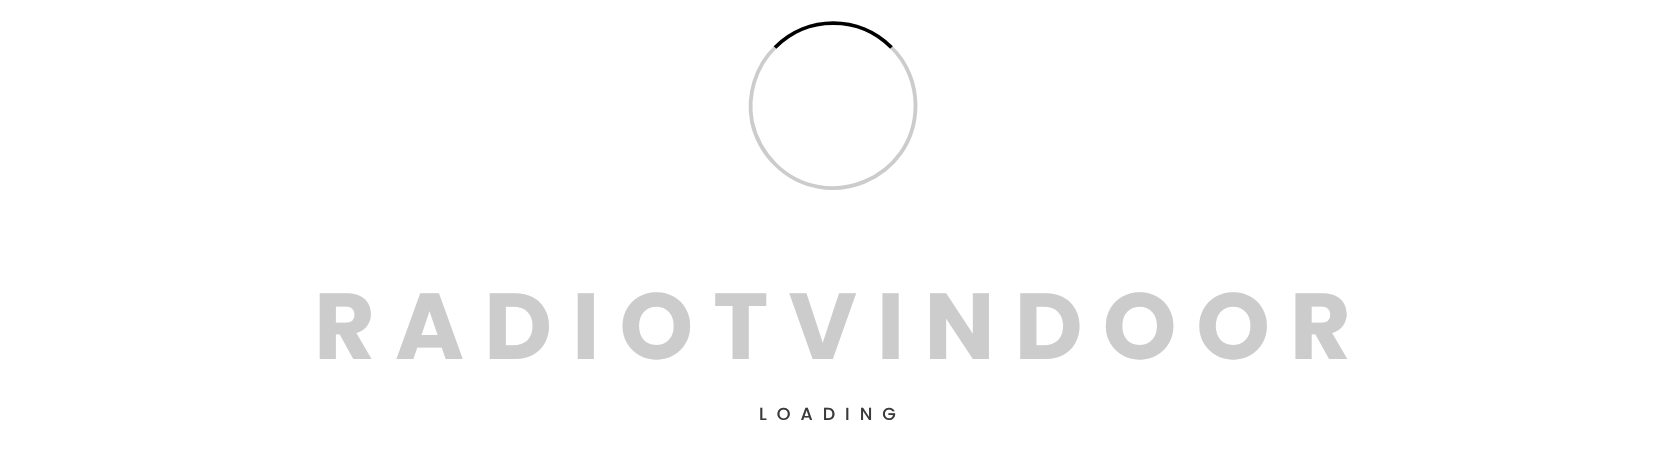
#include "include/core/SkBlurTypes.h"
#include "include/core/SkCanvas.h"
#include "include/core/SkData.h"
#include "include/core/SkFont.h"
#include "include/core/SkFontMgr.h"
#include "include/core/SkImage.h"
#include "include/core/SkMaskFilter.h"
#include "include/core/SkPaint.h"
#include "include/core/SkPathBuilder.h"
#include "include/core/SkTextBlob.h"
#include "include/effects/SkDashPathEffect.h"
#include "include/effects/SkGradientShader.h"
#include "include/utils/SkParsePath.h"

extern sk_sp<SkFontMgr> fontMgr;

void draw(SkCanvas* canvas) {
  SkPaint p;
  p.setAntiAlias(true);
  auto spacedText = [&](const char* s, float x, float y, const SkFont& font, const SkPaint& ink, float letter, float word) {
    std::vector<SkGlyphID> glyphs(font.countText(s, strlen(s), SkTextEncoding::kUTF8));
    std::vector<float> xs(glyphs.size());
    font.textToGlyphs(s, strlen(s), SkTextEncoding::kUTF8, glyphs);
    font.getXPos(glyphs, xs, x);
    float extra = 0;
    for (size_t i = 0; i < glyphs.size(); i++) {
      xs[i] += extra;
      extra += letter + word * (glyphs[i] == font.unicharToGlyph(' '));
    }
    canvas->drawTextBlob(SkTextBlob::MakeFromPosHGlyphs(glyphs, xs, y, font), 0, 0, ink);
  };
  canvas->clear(SK_ColorWHITE);
  p.setStyle(SkPaint::kStroke_Style);
  p.setStrokeWidth(3.8f);
  p.setColor(SK_ColorBLACK);
  canvas->drawPath(SkPathBuilder().moveTo(775, 47.5f).cubicTo(807, 15, 859.5f, 15, 891.5f, 47.5f).detach(), p);
  p.setColor(SkColorSetARGB(51, 0, 0, 0));
  canvas->drawPath(SkPathBuilder().moveTo(891.5f, 47.5f).cubicTo(907, 62.5f, 915.5f, 84, 915.5f, 105.5f).cubicTo(915.5f, 179, 826.5f, 215.5f, 775, 164).cubicTo(763.5f, 152.5f, 755.5f, 137.5f, 752, 122).cubicTo(747, 95, 755.5f, 66.5f, 775, 47.5f).detach(), p);
  SkFont font1(fontMgr->matchFamilyStyle("Poppins", SkFontStyle::Bold()), 93.75f);
  font1.setSubpixel(true);
  p.setStyle(SkPaint::kFill_Style);
  p.setColor(SkColorSetRGB(204, 204, 204));
  canvas->drawString("R A D I O T V I N D O O R", 314, 359, font1, p);
  SkFont font2(fontMgr->matchFamilyStyle("Poppins", SkFontStyle(500, SkFontStyle::kNormal_Width, SkFontStyle::kUpright_Slant)), 17.5f);
  font2.setSubpixel(true);
  p.setColor(SkColorSetRGB(59, 59, 59));
  spacedText("LOADING", 759, 420, font2, p, 10, 0);
}
